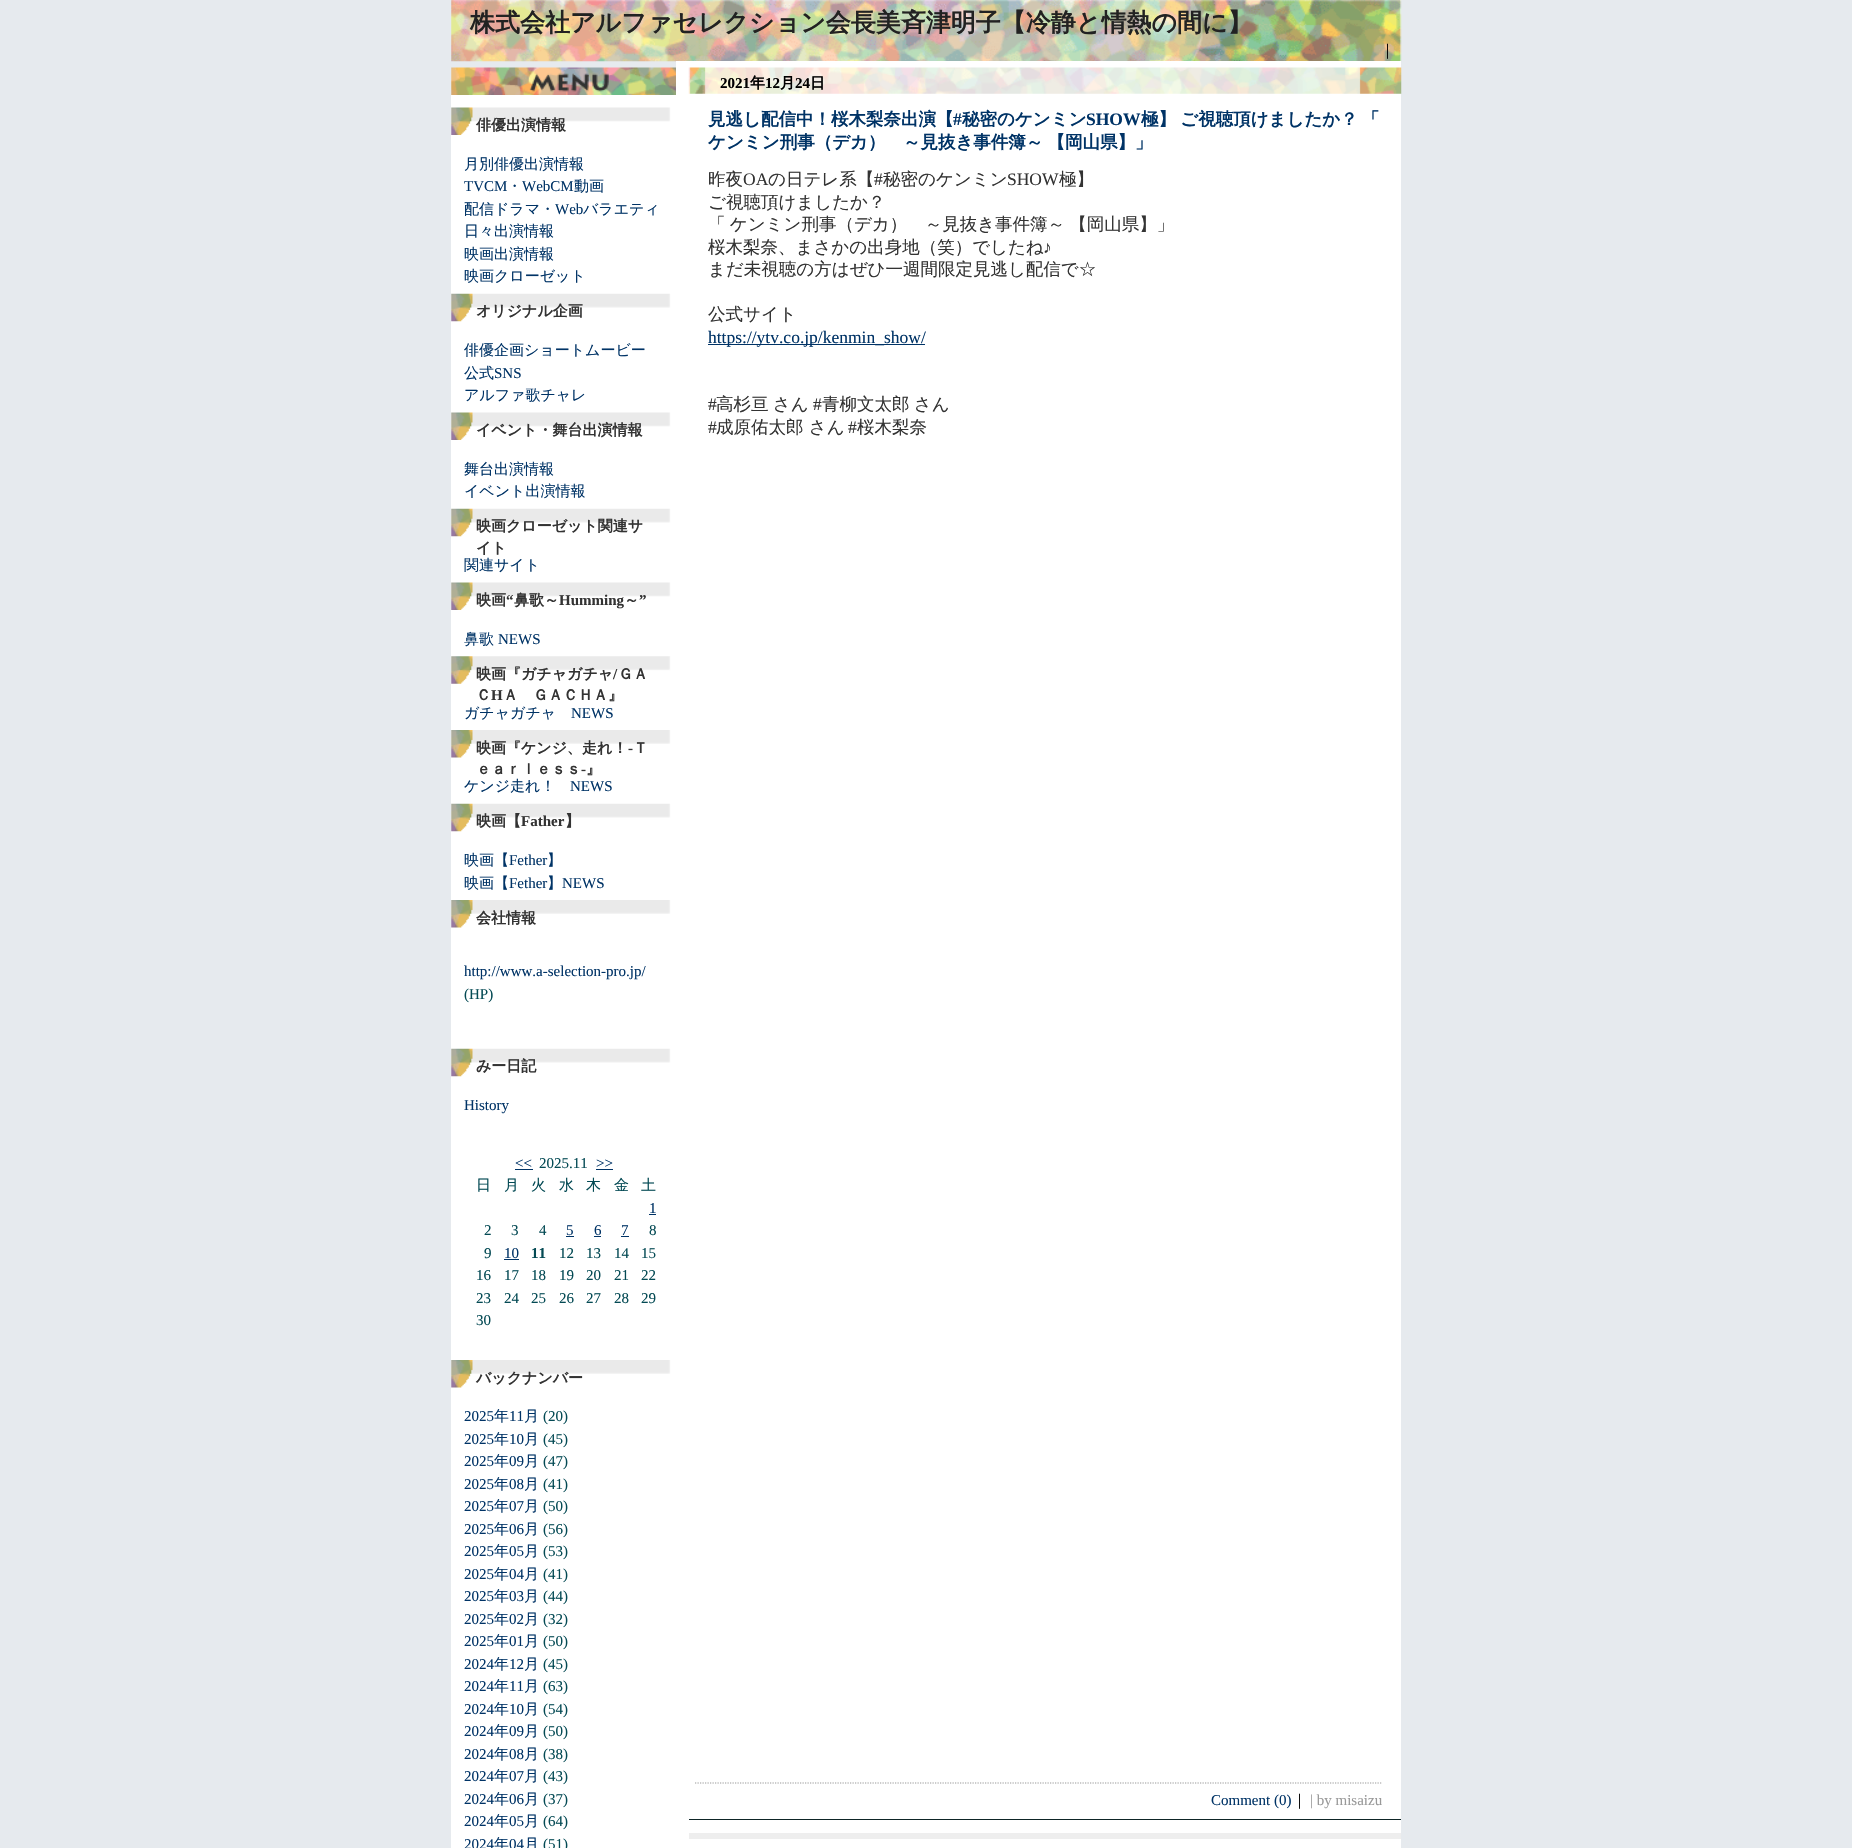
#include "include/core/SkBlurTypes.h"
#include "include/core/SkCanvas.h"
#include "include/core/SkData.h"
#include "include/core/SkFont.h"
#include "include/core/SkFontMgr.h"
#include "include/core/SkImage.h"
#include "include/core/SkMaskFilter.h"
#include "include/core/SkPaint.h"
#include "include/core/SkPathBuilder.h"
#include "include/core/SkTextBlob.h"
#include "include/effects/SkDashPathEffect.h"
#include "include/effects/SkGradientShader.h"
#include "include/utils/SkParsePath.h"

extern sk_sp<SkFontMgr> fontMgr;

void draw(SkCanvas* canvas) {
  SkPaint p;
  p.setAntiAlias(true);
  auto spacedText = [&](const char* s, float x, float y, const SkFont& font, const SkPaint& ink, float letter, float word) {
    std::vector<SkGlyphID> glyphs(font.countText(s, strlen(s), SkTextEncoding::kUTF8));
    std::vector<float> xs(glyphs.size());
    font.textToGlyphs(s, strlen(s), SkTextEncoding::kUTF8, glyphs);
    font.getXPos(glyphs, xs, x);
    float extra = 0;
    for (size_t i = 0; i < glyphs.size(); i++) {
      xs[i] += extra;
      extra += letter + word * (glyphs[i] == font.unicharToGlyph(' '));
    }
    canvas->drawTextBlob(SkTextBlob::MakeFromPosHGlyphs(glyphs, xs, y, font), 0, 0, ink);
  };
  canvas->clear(SkColorSetRGB(230, 234, 238));
  canvas->drawImageRect(SkImages::DeferredFromEncodedData(SkData::MakeFromFileName("images/1.png")), SkRect::MakeLTRB(451, 0, 1402, 62), SkSamplingOptions());
  canvas->drawImageRect(SkImages::DeferredFromEncodedData(SkData::MakeFromFileName("images/2.png")), SkRect::MakeLTRB(451, 67, 676, 95), SkSamplingOptions());
  p.setColor(SK_ColorWHITE);
  canvas->drawRect(SkRect::MakeLTRB(451, 95, 676, 1848), p);
  canvas->drawImageRect(SkImages::DeferredFromEncodedData(SkData::MakeFromFileName("images/3.png")), SkRect::MakeLTRB(451, 107, 676, 135), SkSamplingOptions());
  canvas->drawImageRect(SkImages::DeferredFromEncodedData(SkData::MakeFromFileName("images/4.png")), SkRect::MakeLTRB(451, 293, 676, 322), SkSamplingOptions());
  canvas->drawImageRect(SkImages::DeferredFromEncodedData(SkData::MakeFromFileName("images/3.png")), SkRect::MakeLTRB(451, 412, 676, 440), SkSamplingOptions());
  canvas->drawImageRect(SkImages::DeferredFromEncodedData(SkData::MakeFromFileName("images/5.png")), SkRect::MakeLTRB(451, 508, 676, 537), SkSamplingOptions());
  canvas->drawImageRect(SkImages::DeferredFromEncodedData(SkData::MakeFromFileName("images/6.png")), SkRect::MakeLTRB(451, 582, 676, 610), SkSamplingOptions());
  canvas->drawImageRect(SkImages::DeferredFromEncodedData(SkData::MakeFromFileName("images/7.png")), SkRect::MakeLTRB(451, 656, 676, 684), SkSamplingOptions());
  canvas->drawImageRect(SkImages::DeferredFromEncodedData(SkData::MakeFromFileName("images/8.png")), SkRect::MakeLTRB(451, 730, 676, 758), SkSamplingOptions());
  canvas->drawImageRect(SkImages::DeferredFromEncodedData(SkData::MakeFromFileName("images/5.png")), SkRect::MakeLTRB(451, 803, 676, 832), SkSamplingOptions());
  canvas->drawImageRect(SkImages::DeferredFromEncodedData(SkData::MakeFromFileName("images/8.png")), SkRect::MakeLTRB(451, 900, 676, 928), SkSamplingOptions());
  canvas->drawImageRect(SkImages::DeferredFromEncodedData(SkData::MakeFromFileName("images/5.png")), SkRect::MakeLTRB(451, 1048, 676, 1077), SkSamplingOptions());
  p.setColor(SkColorSetRGB(0, 51, 102));
  canvas->drawRect(SkRect::MakeLTRB(515, 1169, 533, 1170), p);
  canvas->drawRect(SkRect::MakeLTRB(596, 1169, 613, 1170), p);
  canvas->drawRect(SkRect::MakeLTRB(504, 1259, 519, 1260), p);
  canvas->drawRect(SkRect::MakeLTRB(566, 1236, 574, 1237), p);
  canvas->drawRect(SkRect::MakeLTRB(594, 1236, 601, 1237), p);
  canvas->drawRect(SkRect::MakeLTRB(621, 1236, 629, 1237), p);
  canvas->drawRect(SkRect::MakeLTRB(649, 1214, 656, 1215), p);
  canvas->drawImageRect(SkImages::DeferredFromEncodedData(SkData::MakeFromFileName("images/8.png")), SkRect::MakeLTRB(451, 1360, 676, 1388), SkSamplingOptions());
  p.setColor(SK_ColorWHITE);
  canvas->drawRect(SkRect::MakeLTRB(676, 61, 1401, 1848), p);
  canvas->drawImageRect(SkImages::DeferredFromEncodedData(SkData::MakeFromFileName("images/9.png")), SkRect::MakeLTRB(688, 67, 1402, 94), SkSamplingOptions());
  p.setColor(SkColorSetRGB(0, 51, 102));
  canvas->drawRect(SkRect::MakeLTRB(708, 344, 925, 345), p);
  p.setStyle(SkPaint::kStroke_Style);
  p.setStrokeWidth(1.2f);
  p.setColor(SkColorSetRGB(153, 153, 153));
  p.setPathEffect(SkDashPathEffect::Make({{1.25f, 1.25f}}, 0));
  canvas->drawPath(SkPathBuilder().moveTo(695, 1783).lineTo(1382.5f, 1783).detach(), p);
  p.setPathEffect(nullptr);
  p.setStyle(SkPaint::kFill_Style);
  p.setColor(SkColorSetRGB(14, 37, 38));
  canvas->drawRect(SkRect::MakeLTRB(689, 1819, 1401, 1820), p);
  p.setColor(SkColorSetRGB(238, 238, 238));
  canvas->drawRect(SkRect::MakeLTRB(689, 1833, 1401, 1839), p);
  SkFont font1(fontMgr->matchFamilyStyle("WenQuanYi Zen Hei", SkFontStyle::Bold()), 25);
  font1.setSubpixel(true);
  p.setColor(SkColorSetRGB(34, 34, 34));
  canvas->drawString("株式会社アルファセレクション会長美斉津明子【冷静と情熱の間に】", 470, 31, font1, p);
  SkFont font2(fontMgr->matchFamilyStyle("WenQuanYi Zen Hei", SkFontStyle(500, SkFontStyle::kNormal_Width, SkFontStyle::kUpright_Slant)), 15);
  font2.setSubpixel(true);
  p.setColor(SK_ColorBLACK);
  canvas->drawString("｜", 1380, 55, font2, p);
  SkFont font3(fontMgr->matchFamilyStyle("WenQuanYi Zen Hei", SkFontStyle::Bold()), 15);
  font3.setSubpixel(true);
  p.setColor(SkColorSetRGB(51, 51, 51));
  canvas->drawString("俳優出演情報", 476, 130, font3, p);
  p.setColor(SkColorSetRGB(0, 51, 102));
  canvas->drawString("月別俳優出演情報", 464, 169, font2, p);
  SkFont font4(fontMgr->matchFamilyStyle("Liberation Serif", SkFontStyle::Normal()), 15);
  font4.setSubpixel(true);
  canvas->drawString("TVCM", 464, 191, font4, p);
  canvas->drawString("・", 507, 191, font2, p);
  canvas->drawString("WebCM", 522, 191, font4, p);
  canvas->drawString("動画", 574, 191, font2, p);
  canvas->drawString("配信ドラマ・", 464, 214, font2, p);
  canvas->drawString("Web", 555, 214, font4, p);
  canvas->drawString("バラエティ", 583, 214, font2, p);
  canvas->drawString("日々出演情報", 464, 236, font2, p);
  canvas->drawString("映画出演情報", 464, 259, font2, p);
  canvas->drawString("映画クローゼット", 464, 281, font2, p);
  p.setColor(SkColorSetRGB(51, 51, 51));
  canvas->drawString("オリジナル企画", 476, 316, font3, p);
  p.setColor(SkColorSetRGB(0, 51, 102));
  canvas->drawString("俳優企画ショートムービー", 464, 355, font2, p);
  canvas->drawString("公式", 464, 378, font2, p);
  canvas->drawString("SNS", 494, 378, font4, p);
  canvas->drawString("アルファ歌チャレ", 464, 400, font2, p);
  p.setColor(SkColorSetRGB(51, 51, 51));
  canvas->drawString("イベント・舞台出演情報", 476, 435, font3, p);
  p.setColor(SkColorSetRGB(0, 51, 102));
  canvas->drawString("舞台出演情報", 464, 474, font2, p);
  canvas->drawString("イベント出演情報", 464, 496, font2, p);
  p.setColor(SkColorSetRGB(51, 51, 51));
  canvas->drawString("映画クローゼット関連サ", 476, 531, font3, p);
  canvas->drawString("イト", 476, 553, font3, p);
  p.setColor(SkColorSetRGB(0, 51, 102));
  canvas->drawString("関連サイト", 464, 570, font2, p);
  p.setColor(SkColorSetRGB(51, 51, 51));
  canvas->drawString("映画", 476, 605, font3, p);
  SkFont font5(fontMgr->matchFamilyStyle("Liberation Serif", SkFontStyle::Bold()), 15);
  font5.setSubpixel(true);
  canvas->drawString("“", 506, 605, font5, p);
  canvas->drawString("鼻歌～", 514, 605, font3, p);
  canvas->drawString("Humming", 559, 605, font5, p);
  canvas->drawString("”", 639, 605, font5, p);
  canvas->drawString("～", 624, 605, font3, p);
  p.setColor(SkColorSetRGB(0, 51, 102));
  canvas->drawString("鼻歌", 464, 644, font2, p);
  canvas->drawString("NEWS", 498, 644, font4, p);
  p.setColor(SkColorSetRGB(51, 51, 51));
  canvas->drawString("映画『ガチャガチャ", 476, 679, font3, p);
  canvas->drawString("/", 613, 679, font5, p);
  canvas->drawString("ＧＡ", 618, 679, font3, p);
  canvas->drawString("Ｃ", 476, 700, font3, p);
  canvas->drawString("H", 491, 700, font5, p);
  canvas->drawString("Ａ　ＧＡＣＨＡ』", 503, 700, font3, p);
  p.setColor(SkColorSetRGB(0, 51, 102));
  canvas->drawString("ガチャガチャ", 464, 718, font2, p);
  canvas->drawString("NEWS", 571, 718, font4, p);
  p.setColor(SkColorSetRGB(51, 51, 51));
  canvas->drawString("映画『ケンジ、走れ！", 476, 753, font3, p);
  canvas->drawString("-", 628, 753, font5, p);
  canvas->drawString("Ｔ", 633, 753, font3, p);
  canvas->drawString("ｅａｒｌｅｓｓ", 476, 774, font3, p);
  canvas->drawString("-", 581, 774, font5, p);
  canvas->drawString("』", 586, 774, font3, p);
  p.setColor(SkColorSetRGB(0, 51, 102));
  canvas->drawString("ケンジ走れ！", 464, 791, font2, p);
  canvas->drawString("NEWS", 570, 791, font4, p);
  p.setColor(SkColorSetRGB(51, 51, 51));
  canvas->drawString("映画【", 476, 826, font3, p);
  canvas->drawString("Father", 521, 826, font5, p);
  canvas->drawString("】", 565, 826, font3, p);
  p.setColor(SkColorSetRGB(0, 51, 102));
  canvas->drawString("映画【", 464, 865, font2, p);
  canvas->drawString("Fether", 509, 865, font4, p);
  canvas->drawString("】", 547, 865, font2, p);
  canvas->drawString("映画【", 464, 888, font2, p);
  canvas->drawString("Fether", 509, 888, font4, p);
  canvas->drawString("】", 547, 888, font2, p);
  canvas->drawString("NEWS", 562, 888, font4, p);
  p.setColor(SkColorSetRGB(51, 51, 51));
  canvas->drawString("会社情報", 476, 923, font3, p);
  p.setColor(SkColorSetRGB(0, 51, 102));
  canvas->drawString("http://www.a-selection-pro.jp/", 464, 976, font4, p);
  p.setColor(SkColorSetRGB(4, 74, 84));
  canvas->drawString("(HP)", 464, 999, font4, p);
  p.setColor(SkColorSetRGB(51, 51, 51));
  canvas->drawString("みー日記", 476, 1071, font3, p);
  p.setColor(SkColorSetRGB(0, 51, 102));
  canvas->drawString("History", 464, 1110, font4, p);
  canvas->drawString("<<", 515, 1168, font4, p);
  p.setColor(SkColorSetRGB(4, 74, 84));
  canvas->drawString("2025.11", 539, 1168, font4, p);
  p.setColor(SkColorSetRGB(0, 51, 102));
  canvas->drawString(">>", 596, 1168, font4, p);
  p.setColor(SkColorSetRGB(4, 74, 84));
  canvas->drawString("日", 476, 1190, font2, p);
  canvas->drawString("2", 484, 1235, font4, p);
  canvas->drawString("9", 484, 1258, font4, p);
  canvas->drawString("16", 476, 1280, font4, p);
  canvas->drawString("23", 476, 1303, font4, p);
  canvas->drawString("30", 476, 1325, font4, p);
  canvas->drawString("月", 504, 1190, font2, p);
  canvas->drawString("3", 511, 1235, font4, p);
  p.setColor(SkColorSetRGB(0, 51, 102));
  canvas->drawString("10", 504, 1258, font4, p);
  p.setColor(SkColorSetRGB(4, 74, 84));
  canvas->drawString("17", 504, 1280, font4, p);
  canvas->drawString("24", 504, 1303, font4, p);
  canvas->drawString("火", 531, 1190, font2, p);
  canvas->drawString("4", 539, 1235, font4, p);
  canvas->drawString("11", 531, 1258, font5, p);
  canvas->drawString("18", 531, 1280, font4, p);
  canvas->drawString("25", 531, 1303, font4, p);
  canvas->drawString("水", 559, 1190, font2, p);
  p.setColor(SkColorSetRGB(0, 51, 102));
  canvas->drawString("5", 566, 1235, font4, p);
  p.setColor(SkColorSetRGB(4, 74, 84));
  canvas->drawString("12", 559, 1258, font4, p);
  canvas->drawString("19", 559, 1280, font4, p);
  canvas->drawString("26", 559, 1303, font4, p);
  canvas->drawString("木", 586, 1190, font2, p);
  p.setColor(SkColorSetRGB(0, 51, 102));
  canvas->drawString("6", 594, 1235, font4, p);
  p.setColor(SkColorSetRGB(4, 74, 84));
  canvas->drawString("13", 586, 1258, font4, p);
  canvas->drawString("20", 586, 1280, font4, p);
  canvas->drawString("27", 586, 1303, font4, p);
  canvas->drawString("金", 614, 1190, font2, p);
  p.setColor(SkColorSetRGB(0, 51, 102));
  canvas->drawString("7", 621, 1235, font4, p);
  p.setColor(SkColorSetRGB(4, 74, 84));
  canvas->drawString("14", 614, 1258, font4, p);
  canvas->drawString("21", 614, 1280, font4, p);
  canvas->drawString("28", 614, 1303, font4, p);
  canvas->drawString("土", 641, 1190, font2, p);
  p.setColor(SkColorSetRGB(0, 51, 102));
  canvas->drawString("1", 649, 1213, font4, p);
  p.setColor(SkColorSetRGB(4, 74, 84));
  canvas->drawString("8", 649, 1235, font4, p);
  canvas->drawString("15", 641, 1258, font4, p);
  canvas->drawString("22", 641, 1280, font4, p);
  canvas->drawString("29", 641, 1303, font4, p);
  p.setColor(SkColorSetRGB(51, 51, 51));
  canvas->drawString("バックナンバー", 476, 1383, font3, p);
  p.setColor(SkColorSetRGB(0, 51, 102));
  canvas->drawString("2025", 464, 1421, font4, p);
  canvas->drawString("年", 494, 1421, font2, p);
  canvas->drawString("11", 509, 1421, font4, p);
  canvas->drawString("月", 524, 1421, font2, p);
  p.setColor(SkColorSetRGB(4, 74, 84));
  canvas->drawString("(20)", 543, 1421, font4, p);
  p.setColor(SkColorSetRGB(0, 51, 102));
  canvas->drawString("2025", 464, 1444, font4, p);
  canvas->drawString("年", 494, 1444, font2, p);
  canvas->drawString("10", 509, 1444, font4, p);
  canvas->drawString("月", 524, 1444, font2, p);
  p.setColor(SkColorSetRGB(4, 74, 84));
  canvas->drawString("(45)", 543, 1444, font4, p);
  p.setColor(SkColorSetRGB(0, 51, 102));
  canvas->drawString("2025", 464, 1466, font4, p);
  canvas->drawString("年", 494, 1466, font2, p);
  canvas->drawString("09", 509, 1466, font4, p);
  canvas->drawString("月", 524, 1466, font2, p);
  p.setColor(SkColorSetRGB(4, 74, 84));
  canvas->drawString("(47)", 543, 1466, font4, p);
  p.setColor(SkColorSetRGB(0, 51, 102));
  canvas->drawString("2025", 464, 1489, font4, p);
  canvas->drawString("年", 494, 1489, font2, p);
  canvas->drawString("08", 509, 1489, font4, p);
  canvas->drawString("月", 524, 1489, font2, p);
  p.setColor(SkColorSetRGB(4, 74, 84));
  canvas->drawString("(41)", 543, 1489, font4, p);
  p.setColor(SkColorSetRGB(0, 51, 102));
  canvas->drawString("2025", 464, 1511, font4, p);
  canvas->drawString("年", 494, 1511, font2, p);
  canvas->drawString("07", 509, 1511, font4, p);
  canvas->drawString("月", 524, 1511, font2, p);
  p.setColor(SkColorSetRGB(4, 74, 84));
  canvas->drawString("(50)", 543, 1511, font4, p);
  p.setColor(SkColorSetRGB(0, 51, 102));
  canvas->drawString("2025", 464, 1534, font4, p);
  canvas->drawString("年", 494, 1534, font2, p);
  canvas->drawString("06", 509, 1534, font4, p);
  canvas->drawString("月", 524, 1534, font2, p);
  p.setColor(SkColorSetRGB(4, 74, 84));
  canvas->drawString("(56)", 543, 1534, font4, p);
  p.setColor(SkColorSetRGB(0, 51, 102));
  canvas->drawString("2025", 464, 1556, font4, p);
  canvas->drawString("年", 494, 1556, font2, p);
  canvas->drawString("05", 509, 1556, font4, p);
  canvas->drawString("月", 524, 1556, font2, p);
  p.setColor(SkColorSetRGB(4, 74, 84));
  canvas->drawString("(53)", 543, 1556, font4, p);
  p.setColor(SkColorSetRGB(0, 51, 102));
  canvas->drawString("2025", 464, 1579, font4, p);
  canvas->drawString("年", 494, 1579, font2, p);
  canvas->drawString("04", 509, 1579, font4, p);
  canvas->drawString("月", 524, 1579, font2, p);
  p.setColor(SkColorSetRGB(4, 74, 84));
  canvas->drawString("(41)", 543, 1579, font4, p);
  p.setColor(SkColorSetRGB(0, 51, 102));
  canvas->drawString("2025", 464, 1601, font4, p);
  canvas->drawString("年", 494, 1601, font2, p);
  canvas->drawString("03", 509, 1601, font4, p);
  canvas->drawString("月", 524, 1601, font2, p);
  p.setColor(SkColorSetRGB(4, 74, 84));
  canvas->drawString("(44)", 543, 1601, font4, p);
  p.setColor(SkColorSetRGB(0, 51, 102));
  canvas->drawString("2025", 464, 1624, font4, p);
  canvas->drawString("年", 494, 1624, font2, p);
  canvas->drawString("02", 509, 1624, font4, p);
  canvas->drawString("月", 524, 1624, font2, p);
  p.setColor(SkColorSetRGB(4, 74, 84));
  canvas->drawString("(32)", 543, 1624, font4, p);
  p.setColor(SkColorSetRGB(0, 51, 102));
  canvas->drawString("2025", 464, 1646, font4, p);
  canvas->drawString("年", 494, 1646, font2, p);
  canvas->drawString("01", 509, 1646, font4, p);
  canvas->drawString("月", 524, 1646, font2, p);
  p.setColor(SkColorSetRGB(4, 74, 84));
  canvas->drawString("(50)", 543, 1646, font4, p);
  p.setColor(SkColorSetRGB(0, 51, 102));
  canvas->drawString("2024", 464, 1669, font4, p);
  canvas->drawString("年", 494, 1669, font2, p);
  canvas->drawString("12", 509, 1669, font4, p);
  canvas->drawString("月", 524, 1669, font2, p);
  p.setColor(SkColorSetRGB(4, 74, 84));
  canvas->drawString("(45)", 543, 1669, font4, p);
  p.setColor(SkColorSetRGB(0, 51, 102));
  canvas->drawString("2024", 464, 1691, font4, p);
  canvas->drawString("年", 494, 1691, font2, p);
  canvas->drawString("11", 509, 1691, font4, p);
  canvas->drawString("月", 524, 1691, font2, p);
  p.setColor(SkColorSetRGB(4, 74, 84));
  canvas->drawString("(63)", 543, 1691, font4, p);
  p.setColor(SkColorSetRGB(0, 51, 102));
  canvas->drawString("2024", 464, 1714, font4, p);
  canvas->drawString("年", 494, 1714, font2, p);
  canvas->drawString("10", 509, 1714, font4, p);
  canvas->drawString("月", 524, 1714, font2, p);
  p.setColor(SkColorSetRGB(4, 74, 84));
  canvas->drawString("(54)", 543, 1714, font4, p);
  p.setColor(SkColorSetRGB(0, 51, 102));
  canvas->drawString("2024", 464, 1736, font4, p);
  canvas->drawString("年", 494, 1736, font2, p);
  canvas->drawString("09", 509, 1736, font4, p);
  canvas->drawString("月", 524, 1736, font2, p);
  p.setColor(SkColorSetRGB(4, 74, 84));
  canvas->drawString("(50)", 543, 1736, font4, p);
  p.setColor(SkColorSetRGB(0, 51, 102));
  canvas->drawString("2024", 464, 1759, font4, p);
  canvas->drawString("年", 494, 1759, font2, p);
  canvas->drawString("08", 509, 1759, font4, p);
  canvas->drawString("月", 524, 1759, font2, p);
  p.setColor(SkColorSetRGB(4, 74, 84));
  canvas->drawString("(38)", 543, 1759, font4, p);
  p.setColor(SkColorSetRGB(0, 51, 102));
  canvas->drawString("2024", 464, 1781, font4, p);
  canvas->drawString("年", 494, 1781, font2, p);
  canvas->drawString("07", 509, 1781, font4, p);
  canvas->drawString("月", 524, 1781, font2, p);
  p.setColor(SkColorSetRGB(4, 74, 84));
  canvas->drawString("(43)", 543, 1781, font4, p);
  p.setColor(SkColorSetRGB(0, 51, 102));
  canvas->drawString("2024", 464, 1804, font4, p);
  canvas->drawString("年", 494, 1804, font2, p);
  canvas->drawString("06", 509, 1804, font4, p);
  canvas->drawString("月", 524, 1804, font2, p);
  p.setColor(SkColorSetRGB(4, 74, 84));
  canvas->drawString("(37)", 543, 1804, font4, p);
  p.setColor(SkColorSetRGB(0, 51, 102));
  canvas->drawString("2024", 464, 1826, font4, p);
  canvas->drawString("年", 494, 1826, font2, p);
  canvas->drawString("05", 509, 1826, font4, p);
  canvas->drawString("月", 524, 1826, font2, p);
  p.setColor(SkColorSetRGB(4, 74, 84));
  canvas->drawString("(64)", 543, 1826, font4, p);
  p.setColor(SkColorSetRGB(0, 51, 102));
  canvas->drawString("2024", 464, 1849, font4, p);
  canvas->drawString("年", 494, 1849, font2, p);
  canvas->drawString("04", 509, 1849, font4, p);
  canvas->drawString("月", 524, 1849, font2, p);
  p.setColor(SkColorSetRGB(4, 74, 84));
  canvas->drawString("(51)", 543, 1849, font4, p);
  p.setColor(SK_ColorBLACK);
  canvas->drawString("2021", 720, 88, font5, p);
  canvas->drawString("年", 750, 88, font3, p);
  canvas->drawString("12", 765, 88, font5, p);
  canvas->drawString("月", 780, 88, font3, p);
  canvas->drawString("24", 795, 88, font5, p);
  canvas->drawString("日", 810, 88, font3, p);
  SkFont font6(fontMgr->matchFamilyStyle("WenQuanYi Zen Hei", SkFontStyle::Bold()), 17.5f);
  font6.setSubpixel(true);
  p.setColor(SkColorSetRGB(0, 51, 102));
  canvas->drawString("見逃し配信中！桜木梨奈出演【", 708, 125, font6, p);
  SkFont font7(fontMgr->matchFamilyStyle("Liberation Serif", SkFontStyle::Bold()), 17.5f);
  font7.setSubpixel(true);
  canvas->drawString("#", 953, 125, font7, p);
  canvas->drawString("秘密のケンミン", 962, 125, font6, p);
  canvas->drawString("SHOW", 1086, 125, font7, p);
  spacedText("極】 ご視聴頂けましたか？ 「", 1141, 125, font6, p, 0, -1);
  spacedText("ケンミン刑事（デカ）　～見抜き事件簿～ 【岡山県】」", 708, 148, font6, p, 0, -1);
  SkFont font8(fontMgr->matchFamilyStyle("WenQuanYi Zen Hei", SkFontStyle(500, SkFontStyle::kNormal_Width, SkFontStyle::kUpright_Slant)), 17.5f);
  font8.setSubpixel(true);
  p.setColor(SkColorSetRGB(51, 51, 51));
  canvas->drawString("昨夜", 708, 185, font8, p);
  SkFont font9(fontMgr->matchFamilyStyle("Liberation Serif", SkFontStyle::Normal()), 17.5f);
  font9.setSubpixel(true);
  canvas->drawString("OA", 743, 185, font9, p);
  canvas->drawString("の日テレ系【", 768, 185, font8, p);
  canvas->drawString("#", 874, 185, font9, p);
  canvas->drawString("秘密のケンミン", 883, 185, font8, p);
  canvas->drawString("SHOW", 1007, 185, font9, p);
  canvas->drawString("極】", 1059, 185, font8, p);
  canvas->drawString("ご視聴頂けましたか？", 708, 208, font8, p);
  spacedText("「 ケンミン刑事（デカ）　～見抜き事件簿～ 【岡山県】」", 708, 230, font8, p, 0, -1);
  canvas->drawString("桜木梨奈、まさかの出身地（笑）でしたね", 708, 253, font8, p);
  canvas->drawString("♪", 1043, 253, font9, p);
  canvas->drawString("まだ未視聴の方はぜひ一週間限定見逃し配信で☆", 708, 275, font8, p);
  canvas->drawString("公式サイト", 708, 320, font8, p);
  p.setColor(SkColorSetRGB(0, 51, 102));
  canvas->drawString("https://ytv.co.jp/kenmin_show/", 708, 343, font9, p);
  p.setColor(SkColorSetRGB(51, 51, 51));
  canvas->drawString("#", 708, 410, font9, p);
  spacedText("高杉亘 さん", 716, 410, font8, p, 0, -1);
  canvas->drawString("#", 813, 410, font9, p);
  spacedText("青柳文太郎 さん", 822, 410, font8, p, 0, -1);
  canvas->drawString("#", 708, 433, font9, p);
  canvas->drawString("成原佑太郎 さん", 716, 433, font8, p);
  canvas->drawString("#", 848, 433, font9, p);
  canvas->drawString("桜木梨奈", 857, 433, font8, p);
  p.setColor(SkColorSetRGB(0, 51, 102));
  canvas->drawString("Comment (0)", 1211, 1805, font4, p);
  p.setColor(SK_ColorBLACK);
  canvas->drawString("｜", 1292, 1805, font2, p);
  p.setColor(SkColorSetRGB(153, 153, 153));
  canvas->drawString("| by misaizu", 1310, 1805, font4, p);
}
